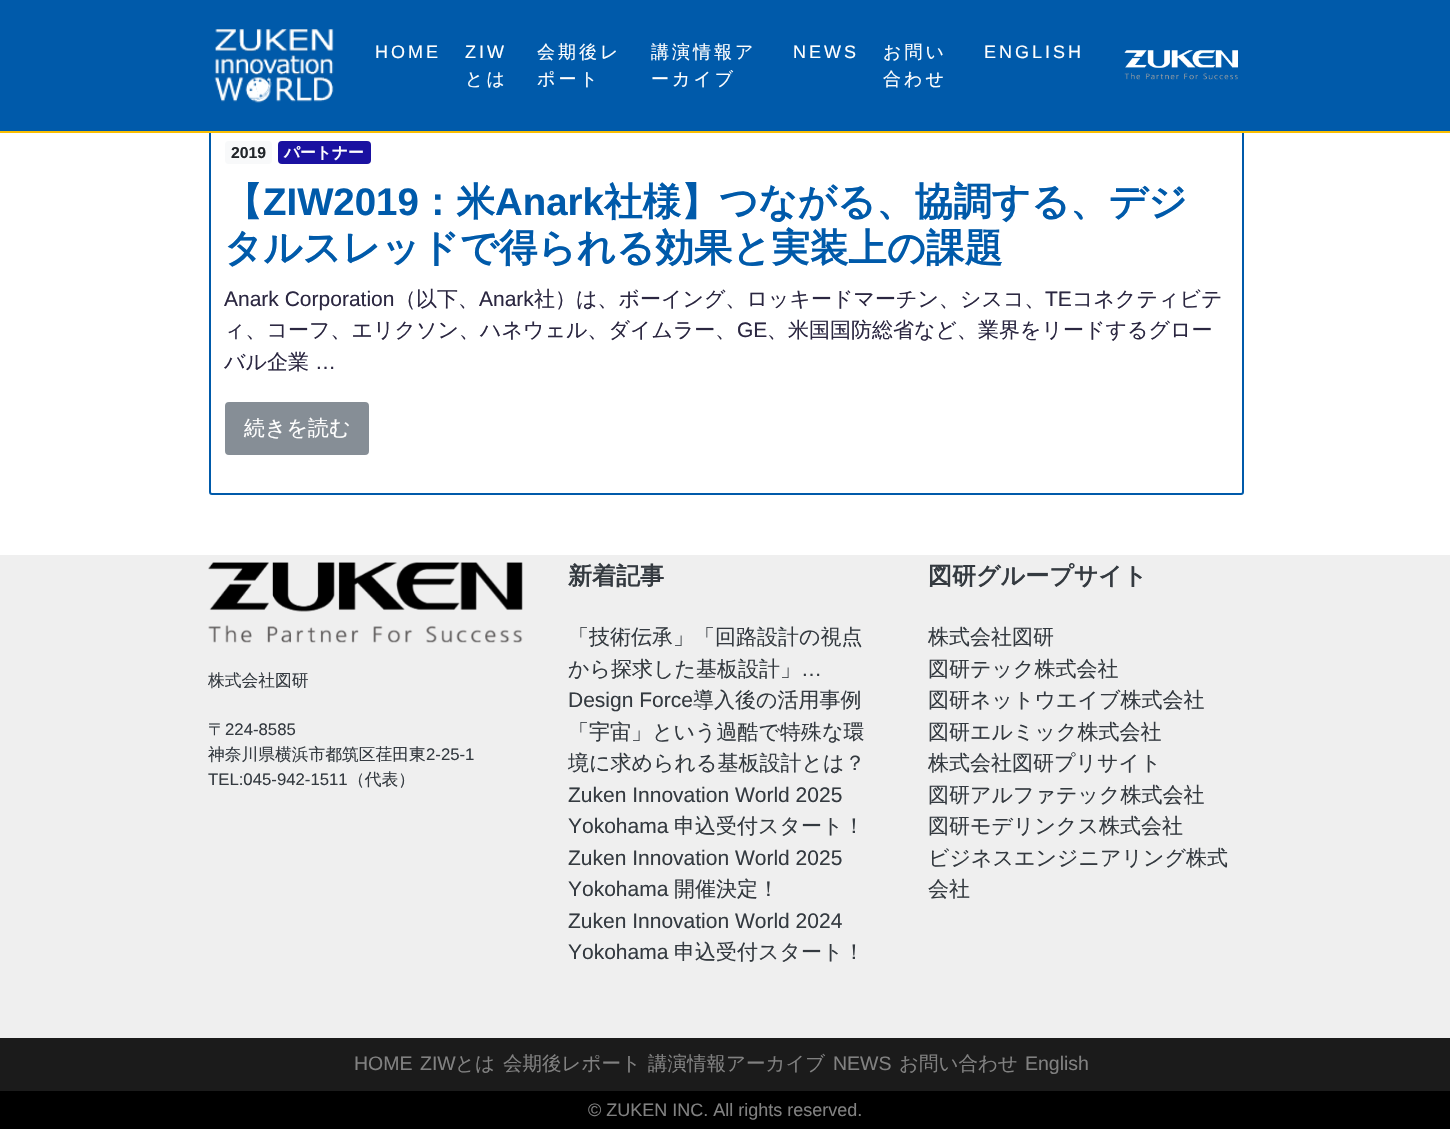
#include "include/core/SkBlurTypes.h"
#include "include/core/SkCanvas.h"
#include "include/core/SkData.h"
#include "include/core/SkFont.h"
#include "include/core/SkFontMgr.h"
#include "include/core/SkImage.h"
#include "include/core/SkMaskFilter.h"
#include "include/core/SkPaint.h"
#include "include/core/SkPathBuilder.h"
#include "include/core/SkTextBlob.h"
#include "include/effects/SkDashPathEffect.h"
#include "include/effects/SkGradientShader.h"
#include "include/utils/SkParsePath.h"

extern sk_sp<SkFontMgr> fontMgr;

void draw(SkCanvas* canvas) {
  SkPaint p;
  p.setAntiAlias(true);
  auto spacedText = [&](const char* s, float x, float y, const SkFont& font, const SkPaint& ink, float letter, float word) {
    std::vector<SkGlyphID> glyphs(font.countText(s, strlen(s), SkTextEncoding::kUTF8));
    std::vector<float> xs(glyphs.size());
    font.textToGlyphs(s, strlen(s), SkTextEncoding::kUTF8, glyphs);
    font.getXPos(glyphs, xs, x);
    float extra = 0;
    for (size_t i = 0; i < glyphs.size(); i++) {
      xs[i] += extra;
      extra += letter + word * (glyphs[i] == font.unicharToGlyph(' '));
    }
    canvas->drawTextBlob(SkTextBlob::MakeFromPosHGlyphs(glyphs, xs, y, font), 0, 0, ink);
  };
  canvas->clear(SkColorSetRGB(239, 239, 239));
  p.setColor(SK_ColorWHITE);
  canvas->drawRect(SkRect::MakeLTRB(0, 133, 1450, 555), p);
  p.setStyle(SkPaint::kStroke_Style);
  p.setStrokeWidth(2);
  p.setColor(SkColorSetRGB(0, 90, 170));
  canvas->drawRoundRect(SkRect::MakeLTRB(210, 120, 1243, 494), 2, 2, p);
  p.setStyle(SkPaint::kFill_Style);
  canvas->drawRect(SkRect::MakeLTRB(0, 0, 1450, 131), p);
  p.setColor(SkColorSetRGB(250, 190, 0));
  canvas->drawRect(SkRect::MakeLTRB(0, 131, 1450, 133), p);
  canvas->drawImageRect(SkImages::DeferredFromEncodedData(SkData::MakeFromFileName("images/1.png")), SkRect::MakeLTRB(214, 29, 334, 103), SkSamplingOptions());
  canvas->drawImageRect(SkImages::DeferredFromEncodedData(SkData::MakeFromFileName("images/2.png")), SkRect::MakeLTRB(1124, 50, 1238, 80), SkSamplingOptions());
  p.setColor(SkColorSetRGB(248, 249, 250));
  canvas->drawRoundRect(SkRect::MakeLTRB(225, 141, 272, 164), 4, 4, p);
  p.setColor(SkColorSetRGB(26, 17, 161));
  canvas->drawRoundRect(SkRect::MakeLTRB(278, 141, 371, 164), 4, 4, p);
  p.setColor(SkColorSetRGB(134, 142, 150));
  canvas->drawRoundRect(SkRect::MakeLTRB(226, 403, 368, 454), 3, 3, p);
  p.setStyle(SkPaint::kStroke_Style);
  canvas->drawRoundRect(SkRect::MakeLTRB(226, 403, 368, 454), 3, 3, p);
  canvas->drawImageRect(SkImages::DeferredFromEncodedData(SkData::MakeFromFileName("images/3.png")), SkRect::MakeLTRB(208, 562, 523, 643), SkSamplingOptions());
  p.setStyle(SkPaint::kFill_Style);
  p.setColor(SkColorSetRGB(27, 27, 27));
  canvas->drawRect(SkRect::MakeLTRB(0, 1038, 1450, 1091), p);
  p.setColor(SK_ColorBLACK);
  canvas->drawRect(SkRect::MakeLTRB(0, 1091, 1450, 1129), p);
  SkFont font1(fontMgr->matchFamilyStyle("Liberation Sans", SkFontStyle::Normal()), 18);
  font1.setSubpixel(true);
  p.setColor(SK_ColorWHITE);
  spacedText("HOME", 375, 58, font1, p, 3, 0);
  spacedText("ZIW", 465, 58, font1, p, 3, 0);
  SkFont font2(fontMgr->matchFamilyStyle("WenQuanYi Zen Hei", SkFontStyle(500, SkFontStyle::kNormal_Width, SkFontStyle::kUpright_Slant)), 18);
  font2.setSubpixel(true);
  spacedText("とは", 465, 85, font2, p, 3, 0);
  spacedText("会期後レ", 537, 58, font2, p, 3, 0);
  spacedText("ポート", 537, 85, font2, p, 3, 0);
  spacedText("講演情報ア", 651, 58, font2, p, 3, 0);
  spacedText("ーカイブ", 651, 85, font2, p, 3, 0);
  spacedText("NEWS", 793, 58, font1, p, 3, 0);
  spacedText("お問い", 883, 58, font2, p, 3, 0);
  spacedText("合わせ", 883, 85, font2, p, 3, 0);
  spacedText("ENGLISH", 984, 58, font1, p, 3, 0);
  SkFont font3(fontMgr->matchFamilyStyle("Liberation Sans", SkFontStyle::Bold()), 15.75f);
  font3.setSubpixel(true);
  p.setColor(SkColorSetRGB(33, 37, 41));
  canvas->drawString("2019", 231, 158, font3, p);
  SkFont font4(fontMgr->matchFamilyStyle("WenQuanYi Zen Hei", SkFontStyle::Bold()), 15.75f);
  font4.setSubpixel(true);
  p.setColor(SK_ColorWHITE);
  canvas->drawString("パートナー", 284, 158, font4, p);
  SkFont font5(fontMgr->matchFamilyStyle("WenQuanYi Zen Hei", SkFontStyle::Bold()), 38.4f);
  font5.setSubpixel(true);
  p.setColor(SkColorSetRGB(0, 90, 170));
  canvas->drawString("【", 224, 215, font5, p);
  SkFont font6(fontMgr->matchFamilyStyle("Liberation Sans", SkFontStyle::Bold()), 38.4f);
  font6.setSubpixel(true);
  canvas->drawString("ZIW2019", 263, 215, font6, p);
  canvas->drawString("：米", 418, 215, font5, p);
  canvas->drawString("Anark", 495, 215, font6, p);
  canvas->drawString("社様】つながる、協調する、デジ", 604, 215, font5, p);
  canvas->drawString("タルスレッドで得られる効果と実装上の課題", 224, 261, font5, p);
  SkFont font7(fontMgr->matchFamilyStyle("Liberation Sans", SkFontStyle::Normal()), 21);
  font7.setSubpixel(true);
  p.setColor(SkColorSetRGB(43, 39, 65));
  canvas->drawString("Anark Corporation", 224, 306, font7, p);
  SkFont font8(fontMgr->matchFamilyStyle("WenQuanYi Zen Hei", SkFontStyle(500, SkFontStyle::kNormal_Width, SkFontStyle::kUpright_Slant)), 21);
  font8.setSubpixel(true);
  canvas->drawString("（以下、", 395, 306, font8, p);
  canvas->drawString("Anark", 479, 306, font7, p);
  canvas->drawString("社）は、ボーイング、ロッキードマーチン、シスコ、", 534, 306, font8, p);
  canvas->drawString("TE", 1045, 306, font7, p);
  canvas->drawString("コネクティビテ", 1072, 306, font8, p);
  canvas->drawString("ィ、コーフ、エリクソン、ハネウェル、ダイムラー、", 224, 337, font8, p);
  canvas->drawString("GE", 737, 337, font7, p);
  canvas->drawString("、米国国防総省など、業界をリードするグロー", 767, 337, font8, p);
  canvas->drawString("バル企業", 224, 369, font8, p);
  canvas->drawString("…", 315, 369, font7, p);
  p.setColor(SK_ColorWHITE);
  canvas->drawString("続きを読む", 244, 435, font8, p);
  SkFont font9(fontMgr->matchFamilyStyle("WenQuanYi Zen Hei", SkFontStyle(500, SkFontStyle::kNormal_Width, SkFontStyle::kUpright_Slant)), 16.75f);
  font9.setSubpixel(true);
  p.setColor(SkColorSetRGB(52, 58, 64));
  canvas->drawString("株式会社図研", 208, 686, font9, p);
  canvas->drawString("〒", 208, 735, font9, p);
  SkFont font10(fontMgr->matchFamilyStyle("Liberation Sans", SkFontStyle::Normal()), 16.75f);
  font10.setSubpixel(true);
  canvas->drawString("224-8585", 225, 735, font10, p);
  canvas->drawString("神奈川県横浜市都筑区荏田東", 208, 760, font9, p);
  canvas->drawString("2-25-1", 426, 760, font10, p);
  canvas->drawString("TEL:045-942-1511", 208, 785, font10, p);
  canvas->drawString("（代表）", 348, 785, font9, p);
  SkFont font11(fontMgr->matchFamilyStyle("WenQuanYi Zen Hei", SkFontStyle::Bold()), 24);
  font11.setSubpixel(true);
  canvas->drawString("新着記事", 568, 584, font11, p);
  canvas->drawString("「技術伝承」「回路設計の視点", 568, 644, font8, p);
  canvas->drawString("から探求した基板設計」", 568, 676, font8, p);
  canvas->drawString("…", 801, 676, font7, p);
  canvas->drawString("Design Force", 568, 707, font7, p);
  canvas->drawString("導入後の活用事例", 693, 707, font8, p);
  canvas->drawString("「宇宙」という過酷で特殊な環", 568, 739, font8, p);
  canvas->drawString("境に求められる基板設計とは？", 568, 770, font8, p);
  canvas->drawString("Zuken Innovation World 2025", 568, 802, font7, p);
  canvas->drawString("Yokohama", 568, 833, font7, p);
  canvas->drawString("申込受付スタート！", 674, 833, font8, p);
  canvas->drawString("Zuken Innovation World 2025", 568, 865, font7, p);
  canvas->drawString("Yokohama", 568, 896, font7, p);
  canvas->drawString("開催決定！", 674, 896, font8, p);
  canvas->drawString("Zuken Innovation World 2024", 568, 928, font7, p);
  canvas->drawString("Yokohama", 568, 959, font7, p);
  canvas->drawString("申込受付スタート！", 674, 959, font8, p);
  canvas->drawString("図研グループサイト", 928, 584, font11, p);
  canvas->drawString("株式会社図研", 928, 644, font8, p);
  canvas->drawString("図研テック株式会社", 928, 676, font8, p);
  canvas->drawString("図研ネットウエイブ株式会社", 928, 707, font8, p);
  canvas->drawString("図研エルミック株式会社", 928, 739, font8, p);
  canvas->drawString("株式会社図研プリサイト", 928, 770, font8, p);
  canvas->drawString("図研アルファテック株式会社", 928, 802, font8, p);
  canvas->drawString("図研モデリンクス株式会社", 928, 833, font8, p);
  canvas->drawString("ビジネスエンジニアリング株式", 928, 865, font8, p);
  canvas->drawString("会社", 928, 896, font8, p);
  SkFont font12(fontMgr->matchFamilyStyle("Liberation Sans", SkFontStyle::Normal()), 19.5f);
  font12.setSubpixel(true);
  p.setColor(SkColorSetRGB(129, 129, 129));
  canvas->drawString("HOME", 354, 1070, font12, p);
  canvas->drawString("ZIW", 420, 1070, font12, p);
  SkFont font13(fontMgr->matchFamilyStyle("WenQuanYi Zen Hei", SkFontStyle(500, SkFontStyle::kNormal_Width, SkFontStyle::kUpright_Slant)), 19.5f);
  font13.setSubpixel(true);
  canvas->drawString("とは", 455, 1070, font13, p);
  canvas->drawString("会期後レポート", 503, 1070, font13, p);
  canvas->drawString("講演情報アーカイブ", 648, 1070, font13, p);
  canvas->drawString("NEWS", 833, 1070, font12, p);
  canvas->drawString("お問い合わせ", 899, 1070, font13, p);
  canvas->drawString("English", 1025, 1070, font12, p);
  canvas->drawString("© ZUKEN INC. All rights reserved.", 588, 1116, font1, p);
}
